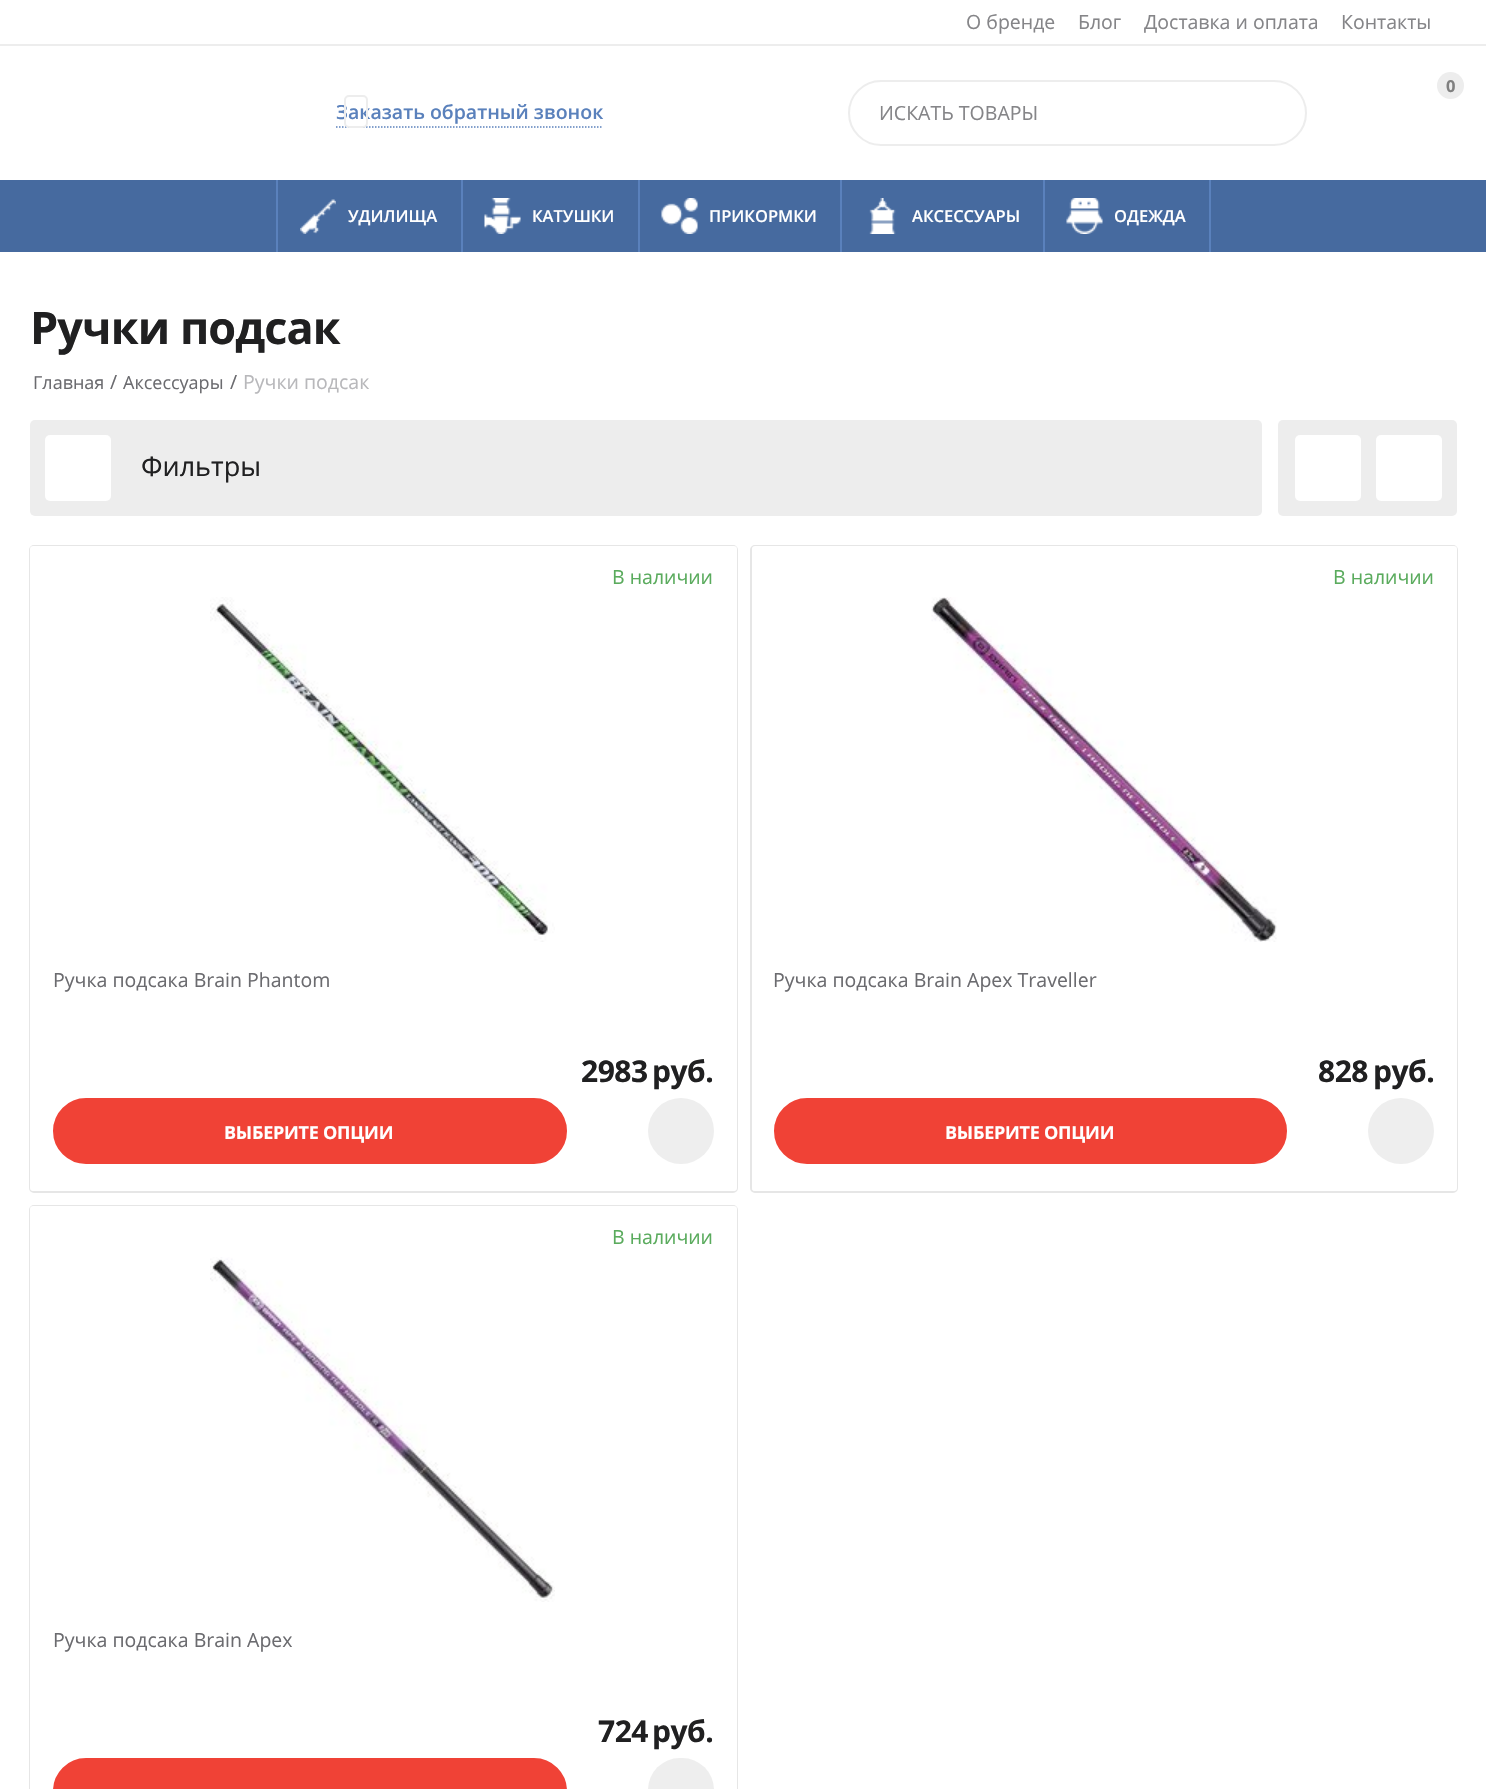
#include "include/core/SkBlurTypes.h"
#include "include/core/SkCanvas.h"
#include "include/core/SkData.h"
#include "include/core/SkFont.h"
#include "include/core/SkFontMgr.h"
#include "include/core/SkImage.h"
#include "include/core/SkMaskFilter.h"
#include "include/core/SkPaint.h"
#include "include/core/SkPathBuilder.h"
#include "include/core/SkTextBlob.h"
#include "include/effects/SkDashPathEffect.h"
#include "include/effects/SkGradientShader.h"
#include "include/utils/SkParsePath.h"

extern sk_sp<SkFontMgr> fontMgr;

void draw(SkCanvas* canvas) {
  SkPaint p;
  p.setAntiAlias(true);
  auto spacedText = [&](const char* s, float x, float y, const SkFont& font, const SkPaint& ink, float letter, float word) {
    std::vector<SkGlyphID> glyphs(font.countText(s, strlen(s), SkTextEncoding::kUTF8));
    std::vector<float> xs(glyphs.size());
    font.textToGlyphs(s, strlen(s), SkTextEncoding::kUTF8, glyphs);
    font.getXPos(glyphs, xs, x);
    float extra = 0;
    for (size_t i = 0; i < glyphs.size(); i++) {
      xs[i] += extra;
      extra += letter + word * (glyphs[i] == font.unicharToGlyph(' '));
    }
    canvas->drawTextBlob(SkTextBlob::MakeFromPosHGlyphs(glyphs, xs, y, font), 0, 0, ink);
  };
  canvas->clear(SK_ColorWHITE);
  p.setColor(SkColorSetRGB(237, 237, 237));
  canvas->drawRect(SkRect::MakeLTRB(0, 44, 1486, 46), p);
  p.setStyle(SkPaint::kStroke_Style);
  p.setStrokeWidth(1.5f);
  p.setColor(SkColorSetRGB(90, 129, 188));
  p.setPathEffect(SkDashPathEffect::Make({{1.5f, 1.5f}}, 0));
  canvas->drawPath(SkPathBuilder().moveTo(336, 127).lineTo(603, 127).detach(), p);
  p.setPathEffect(nullptr);
  p.setStyle(SkPaint::kFill_Style);
  p.setColor(SkColorSetRGB(237, 237, 237));
  canvas->drawCircle(1450.5f, 85.5f, 13.5f, p);
  p.setStyle(SkPaint::kStroke_Style);
  p.setStrokeWidth(2);
  canvas->drawRoundRect(SkRect::MakeLTRB(849, 81, 1306, 145), 32, 32, p);
  p.setStyle(SkPaint::kFill_Style);
  p.setColor(SkColorSetRGB(70, 106, 159));
  canvas->drawRect(SkRect::MakeLTRB(0, 180, 1486, 252), p);
  p.setColor(SkColorSetRGB(90, 129, 188));
  canvas->drawRect(SkRect::MakeLTRB(461, 180, 463, 252), p);
  canvas->drawRect(SkRect::MakeLTRB(276, 180, 278, 252), p);
  canvas->drawImageRect(SkImages::DeferredFromEncodedData(SkData::MakeFromFileName("images/1.png")), SkRect::MakeLTRB(300, 199, 336, 234), SkSamplingOptions());
  canvas->drawRect(SkRect::MakeLTRB(638, 180, 640, 252), p);
  canvas->drawImageRect(SkImages::DeferredFromEncodedData(SkData::MakeFromFileName("images/2.png")), SkRect::MakeLTRB(484, 198, 521, 234), SkSamplingOptions());
  canvas->drawRect(SkRect::MakeLTRB(840, 180, 842, 252), p);
  canvas->drawImageRect(SkImages::DeferredFromEncodedData(SkData::MakeFromFileName("images/3.png")), SkRect::MakeLTRB(661, 198, 698, 234), SkSamplingOptions());
  canvas->drawRect(SkRect::MakeLTRB(1043, 180, 1045, 252), p);
  canvas->drawImageRect(SkImages::DeferredFromEncodedData(SkData::MakeFromFileName("images/4.png")), SkRect::MakeLTRB(869, 198, 896, 234), SkSamplingOptions());
  canvas->drawRect(SkRect::MakeLTRB(1209, 180, 1211, 252), p);
  canvas->drawImageRect(SkImages::DeferredFromEncodedData(SkData::MakeFromFileName("images/5.png")), SkRect::MakeLTRB(1066, 198, 1103, 234), SkSamplingOptions());
  p.setColor(SkColorSetRGB(237, 237, 237));
  canvas->drawRoundRect(SkRect::MakeLTRB(30, 420, 1262, 516), 5, 5, p);
  p.setColor(SK_ColorWHITE);
  canvas->drawRoundRect(SkRect::MakeLTRB(45, 435, 111, 501), 5, 5, p);
  p.setColor(SkColorSetRGB(237, 237, 237));
  canvas->drawRoundRect(SkRect::MakeLTRB(1278, 420, 1457, 516), 5, 5, p);
  p.setColor(SK_ColorWHITE);
  canvas->drawRoundRect(SkRect::MakeLTRB(1295, 435, 1361, 501), 5, 5, p);
  canvas->drawRoundRect(SkRect::MakeLTRB(1376, 435, 1442, 501), 5, 5, p);
  p.setStyle(SkPaint::kStroke_Style);
  p.setColor(SkColorSetRGB(230, 230, 230));
  canvas->drawRoundRect(SkRect::MakeLTRB(30, 546, 737, 1192), 4, 4, p);
  p.setStyle(SkPaint::kFill_Style);
  p.setColor(SK_ColorWHITE);
  canvas->drawRoundRect(SkRect::MakeLTRB(30, 546, 737, 1191), 3, 3, p);
  canvas->drawImageRect(SkImages::DeferredFromEncodedData(SkData::MakeFromFileName("images/6.png")), SkRect::MakeLTRB(210, 597, 555, 942), SkSamplingOptions());
  p.setColor(SkColorSetRGB(240, 66, 54));
  canvas->drawRoundRect(SkRect::MakeLTRB(54, 1099, 566, 1163), 32, 32, p);
  p.setStyle(SkPaint::kStroke_Style);
  canvas->drawRoundRect(SkRect::MakeLTRB(54, 1099, 566, 1163), 32, 32, p);
  p.setStyle(SkPaint::kFill_Style);
  p.setColor(SkColorSetRGB(238, 238, 238));
  canvas->drawCircle(681, 1131, 33, p);
  p.setStyle(SkPaint::kStroke_Style);
  p.setColor(SkColorSetRGB(230, 230, 230));
  canvas->drawRoundRect(SkRect::MakeLTRB(751, 546, 1457, 1192), 4, 4, p);
  p.setStyle(SkPaint::kFill_Style);
  p.setColor(SK_ColorWHITE);
  canvas->drawRoundRect(SkRect::MakeLTRB(752, 546, 1457, 1191), 3, 3, p);
  canvas->drawImageRect(SkImages::DeferredFromEncodedData(SkData::MakeFromFileName("images/7.png")), SkRect::MakeLTRB(931, 597, 1277, 942), SkSamplingOptions());
  p.setColor(SkColorSetRGB(240, 66, 54));
  canvas->drawRoundRect(SkRect::MakeLTRB(775, 1099, 1286, 1163), 32, 32, p);
  p.setStyle(SkPaint::kStroke_Style);
  canvas->drawRoundRect(SkRect::MakeLTRB(775, 1099, 1286, 1163), 32, 32, p);
  p.setStyle(SkPaint::kFill_Style);
  p.setColor(SkColorSetRGB(238, 238, 238));
  canvas->drawCircle(1401, 1131, 33, p);
  p.setStyle(SkPaint::kStroke_Style);
  p.setColor(SkColorSetRGB(230, 230, 230));
  canvas->drawRoundRect(SkRect::MakeLTRB(30, 1206, 737, 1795), 4, 4, p);
  p.setStyle(SkPaint::kFill_Style);
  p.setColor(SK_ColorWHITE);
  canvas->drawRoundRect(SkRect::MakeLTRB(30, 1206, 737, 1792), 3, 3, p);
  canvas->drawImageRect(SkImages::DeferredFromEncodedData(SkData::MakeFromFileName("images/8.png")), SkRect::MakeLTRB(210, 1257, 555, 1602), SkSamplingOptions());
  p.setColor(SkColorSetRGB(240, 66, 54));
  canvas->drawRoundRect(SkRect::MakeLTRB(54, 1759, 566, 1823), 32, 32, p);
  p.setStyle(SkPaint::kStroke_Style);
  canvas->drawRoundRect(SkRect::MakeLTRB(54, 1759, 566, 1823), 32, 32, p);
  p.setStyle(SkPaint::kFill_Style);
  p.setColor(SkColorSetRGB(238, 238, 238));
  canvas->drawRoundRect(SkRect::MakeLTRB(648, 1758, 714, 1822), 33, 33, p);
  SkFont font1(fontMgr->matchFamilyStyle("Open Sans", SkFontStyle::Normal()), 19.5f);
  font1.setSubpixel(true);
  p.setColor(SkColorSetRGB(133, 133, 136));
  canvas->drawString("О бренде", 966, 29, font1, p);
  canvas->drawString("Блог", 1078, 29, font1, p);
  canvas->drawString("Доставка и оплата", 1144, 29, font1, p);
  canvas->drawString("Контакты", 1341, 29, font1, p);
  SkFont font2(fontMgr->matchFamilyStyle("Open Sans", SkFontStyle(600, SkFontStyle::kNormal_Width, SkFontStyle::kUpright_Slant)), 19.5f);
  font2.setSubpixel(true);
  p.setColor(SkColorSetRGB(90, 129, 188));
  canvas->drawString("Заказать обратный звонок", 336, 119, font2, p);
  p.setStyle(SkPaint::kStroke_Style);
  p.setColor(SkColorSetRGB(237, 237, 237));
  canvas->drawRoundRect(SkRect::MakeLTRB(345, 96, 367, 127), 4, 4, p);
  SkFont font3(fontMgr->matchFamilyStyle("Open Sans", SkFontStyle::Bold()), 16.5f);
  font3.setSubpixel(true);
  p.setStyle(SkPaint::kFill_Style);
  p.setColor(SkColorSetRGB(128, 128, 128));
  canvas->drawString("0", 1446, 92, font3, p);
  p.setColor(SkColorSetRGB(133, 133, 136));
  canvas->drawString("ИСКАТЬ ТОВАРЫ", 879, 120, font1, p);
  SkFont font4(fontMgr->matchFamilyStyle("Open Sans", SkFontStyle(600, SkFontStyle::kNormal_Width, SkFontStyle::kUpright_Slant)), 16.5f);
  font4.setSubpixel(true);
  p.setColor(SK_ColorWHITE);
  canvas->drawString("УДИЛИЩА", 348, 222, font4, p);
  canvas->drawString("КАТУШКИ", 532, 222, font4, p);
  canvas->drawString("ПРИКОРМКИ", 709, 222, font4, p);
  canvas->drawString("АКСЕССУАРЫ", 912, 222, font4, p);
  canvas->drawString("ОДЕЖДА", 1114, 222, font4, p);
  SkFont font5(fontMgr->matchFamilyStyle("Open Sans", SkFontStyle::Bold()), 45);
  font5.setSubpixel(true);
  p.setColor(SkColorSetRGB(32, 32, 33));
  spacedText("Ручки подсак", 30, 344, font5, p, -0.9f, 0);
  SkFont font6(fontMgr->matchFamilyStyle("Open Sans", SkFontStyle::Normal()), 18);
  font6.setSubpixel(true);
  p.setColor(SkColorSetRGB(107, 107, 111));
  canvas->drawString("Главная", 33, 389, font6, p);
  canvas->drawString("/", 110, 389, font1, p);
  canvas->drawString("Аксессуары", 123, 389, font6, p);
  canvas->drawString("/", 230, 389, font1, p);
  p.setColor(SkColorSetRGB(184, 184, 187));
  canvas->drawString("Ручки подсак", 243, 389, font1, p);
  SkFont font7(fontMgr->matchFamilyStyle("Open Sans", SkFontStyle::Normal()), 27);
  font7.setSubpixel(true);
  p.setColor(SkColorSetRGB(32, 32, 33));
  canvas->drawString("Фильтры", 141, 476, font7, p);
  p.setColor(SkColorSetRGB(90, 171, 93));
  canvas->drawString("В наличии", 612, 584, font1, p);
  p.setColor(SkColorSetRGB(107, 107, 111));
  canvas->drawString("Ручка подсака Brain Phantom", 53, 987, font1, p);
  SkFont font8(fontMgr->matchFamilyStyle("Open Sans", SkFontStyle::Bold()), 30);
  font8.setSubpixel(true);
  p.setColor(SkColorSetRGB(32, 32, 33));
  spacedText("2983", 581, 1082, font8, p, -0.5f, 0);
  spacedText("руб.", 652, 1082, font8, p, -0.5f, 0);
  SkFont font9(fontMgr->matchFamilyStyle("Open Sans", SkFontStyle::Bold()), 18);
  font9.setSubpixel(true);
  p.setColor(SK_ColorWHITE);
  spacedText("ВЫБЕРИТЕ ОПЦИИ", 224, 1139, font9, p, -0.25f, 0);
  p.setColor(SkColorSetRGB(90, 171, 93));
  canvas->drawString("В наличии", 1333, 584, font1, p);
  p.setColor(SkColorSetRGB(107, 107, 111));
  canvas->drawString("Ручка подсака Brain Apex Traveller", 773, 987, font1, p);
  p.setColor(SkColorSetRGB(32, 32, 33));
  spacedText("828", 1318, 1082, font8, p, -0.5f, 0);
  spacedText("руб.", 1373, 1082, font8, p, -0.5f, 0);
  p.setColor(SK_ColorWHITE);
  spacedText("ВЫБЕРИТЕ ОПЦИИ", 945, 1139, font9, p, -0.25f, 0);
  p.setColor(SkColorSetRGB(90, 171, 93));
  canvas->drawString("В наличии", 612, 1244, font1, p);
  p.setColor(SkColorSetRGB(107, 107, 111));
  canvas->drawString("Ручка подсака Brain Apex", 53, 1647, font1, p);
  p.setColor(SkColorSetRGB(32, 32, 33));
  spacedText("724", 598, 1742, font8, p, -0.5f, 0);
  spacedText("руб.", 652, 1742, font8, p, -0.5f, 0);
}
